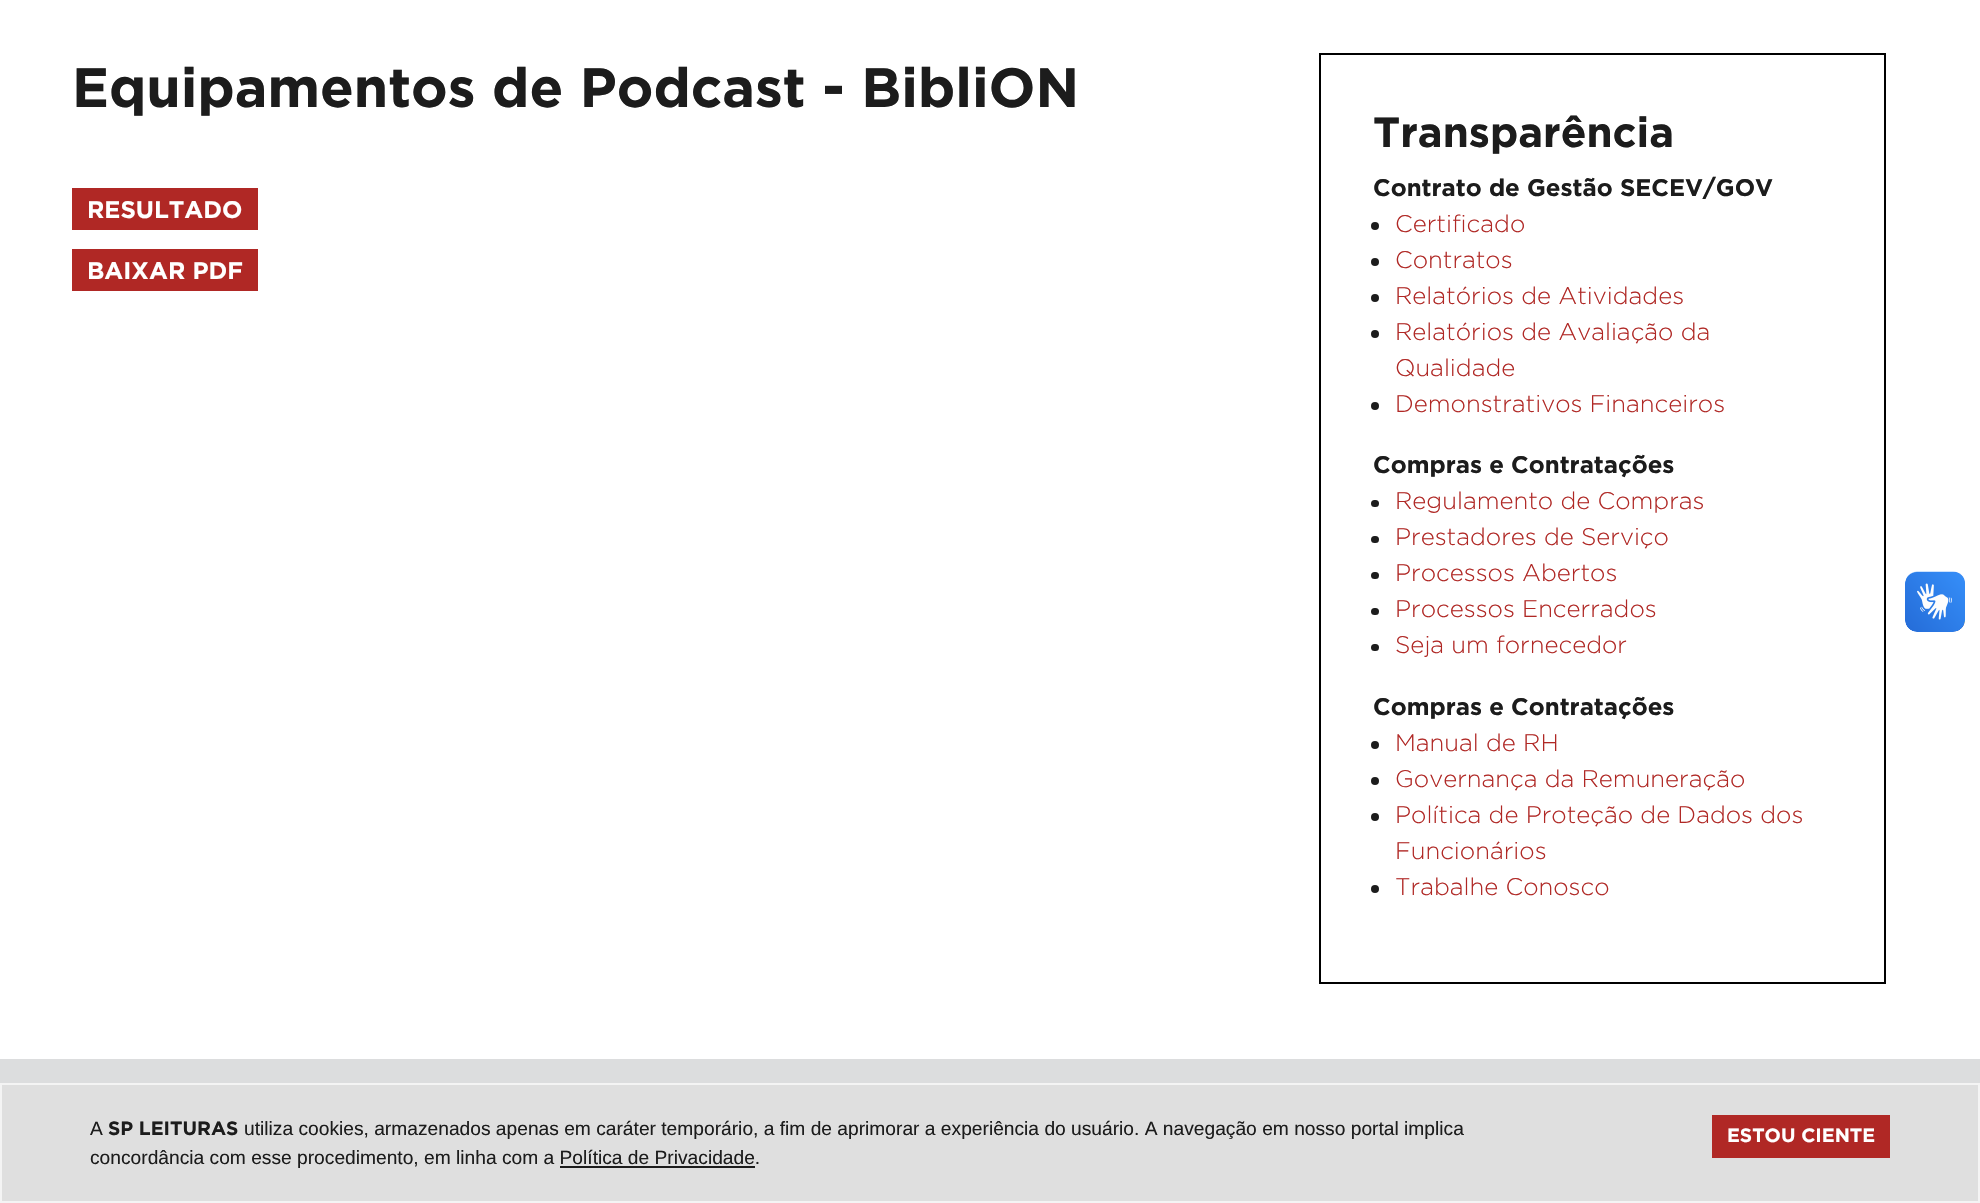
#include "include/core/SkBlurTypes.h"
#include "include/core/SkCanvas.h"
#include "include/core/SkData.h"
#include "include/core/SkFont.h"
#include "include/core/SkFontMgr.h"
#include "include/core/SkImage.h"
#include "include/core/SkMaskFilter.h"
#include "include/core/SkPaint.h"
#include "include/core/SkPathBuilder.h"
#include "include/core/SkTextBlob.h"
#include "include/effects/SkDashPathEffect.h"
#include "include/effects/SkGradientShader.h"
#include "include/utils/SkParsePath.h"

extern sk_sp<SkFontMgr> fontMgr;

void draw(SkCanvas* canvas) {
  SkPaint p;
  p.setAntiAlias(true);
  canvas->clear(SK_ColorWHITE);
  p.setColor(SkColorSetRGB(176, 40, 37));
  canvas->drawRect(SkRect::MakeLTRB(72, 188, 258, 230), p);
  canvas->drawRect(SkRect::MakeLTRB(72, 249, 258, 291), p);
  p.setStyle(SkPaint::kStroke_Style);
  p.setStrokeWidth(2);
  p.setColor(SK_ColorBLACK);
  canvas->drawRect(SkRect::MakeLTRB(1320, 54, 1885, 983), p);
  p.setStyle(SkPaint::kFill_Style);
  p.setColor(SkColorSetRGB(28, 28, 28));
  canvas->drawCircle(1375, 226, 4, p);
  canvas->drawCircle(1375, 262, 4, p);
  canvas->drawCircle(1375, 298, 4, p);
  canvas->drawCircle(1375, 334, 4, p);
  canvas->drawCircle(1375, 406, 4, p);
  canvas->drawRoundRect(SkRect::MakeLTRB(1371, 500, 1379, 507), 3.5f, 3.5f, p);
  canvas->drawRoundRect(SkRect::MakeLTRB(1371, 536, 1379, 543), 3.5f, 3.5f, p);
  canvas->drawRoundRect(SkRect::MakeLTRB(1371, 572, 1379, 579), 3.5f, 3.5f, p);
  canvas->drawRoundRect(SkRect::MakeLTRB(1371, 608, 1379, 615), 3.5f, 3.5f, p);
  canvas->drawRoundRect(SkRect::MakeLTRB(1371, 644, 1379, 651), 3.5f, 3.5f, p);
  canvas->drawCircle(1375, 745, 4, p);
  canvas->drawCircle(1375, 781, 4, p);
  canvas->drawCircle(1375, 817, 4, p);
  canvas->drawCircle(1375, 889, 4, p);
  canvas->drawImageRect(SkImages::DeferredFromEncodedData(SkData::MakeFromFileName("images/1.png")), SkRect::MakeLTRB(1905, 571, 1965, 632), SkSamplingOptions());
  canvas->drawImageRect(SkImages::DeferredFromEncodedData(SkData::MakeFromFileName("images/2.png")), SkRect::MakeLTRB(1905, 572, 1965, 632), SkSamplingOptions());
  p.setColor(SkColorSetRGB(220, 221, 222));
  canvas->drawRect(SkRect::MakeLTRB(0, 1059, 1980, 1083), p);
  p.setColor(SkColorSetRGB(223, 223, 223));
  canvas->drawRect(SkRect::MakeLTRB(1, 1084, 1979, 1202), p);
  p.setStyle(SkPaint::kStroke_Style);
  p.setColor(SkColorSetRGB(244, 244, 244));
  canvas->drawRect(SkRect::MakeLTRB(1, 1084, 1979, 1202), p);
  p.setStyle(SkPaint::kFill_Style);
  p.setColor(SkColorSetRGB(28, 28, 28));
  canvas->drawRect(SkRect::MakeLTRB(560, 1166, 755, 1168), p);
  p.setColor(SkColorSetRGB(176, 40, 37));
  canvas->drawRect(SkRect::MakeLTRB(1712, 1115, 1890, 1158), p);
  SkFont font1(fontMgr->matchFamilyStyle("Gotham", SkFontStyle::Bold()), 55.25f);
  font1.setSubpixel(true);
  p.setColor(SkColorSetRGB(28, 28, 28));
  canvas->drawString("Equipamentos de Podcast - BibliON", 72, 107, font1, p);
  SkFont font2(fontMgr->matchFamilyStyle("Gotham", SkFontStyle::Bold()), 24);
  font2.setSubpixel(true);
  p.setColor(SK_ColorWHITE);
  canvas->drawString("RESULTADO", 87, 218, font2, p);
  canvas->drawString("BAIXAR PDF", 87, 279, font2, p);
  SkFont font3(fontMgr->matchFamilyStyle("Gotham", SkFontStyle::Bold()), 42);
  font3.setSubpixel(true);
  p.setColor(SkColorSetRGB(28, 28, 28));
  canvas->drawString("Transparência", 1373, 147, font3, p);
  canvas->drawString("Contrato de Gestão SECEV/GOV", 1373, 196, font2, p);
  SkFont font4(fontMgr->matchFamilyStyle("Gotham", SkFontStyle(300, SkFontStyle::kNormal_Width, SkFontStyle::kUpright_Slant)), 24);
  font4.setSubpixel(true);
  p.setColor(SkColorSetRGB(176, 40, 37));
  canvas->drawString("Certificado", 1395, 232, font4, p);
  canvas->drawString("Contratos", 1395, 268, font4, p);
  canvas->drawString("Relatórios de Atividades", 1395, 304, font4, p);
  canvas->drawString("Relatórios de Avaliação da", 1395, 340, font4, p);
  canvas->drawString("Qualidade", 1395, 376, font4, p);
  canvas->drawString("Demonstrativos Financeiros", 1395, 412, font4, p);
  p.setColor(SkColorSetRGB(28, 28, 28));
  canvas->drawString("Compras e Contratações", 1373, 473, font2, p);
  p.setColor(SkColorSetRGB(176, 40, 37));
  canvas->drawString("Regulamento de Compras", 1395, 509, font4, p);
  canvas->drawString("Prestadores de Serviço", 1395, 545, font4, p);
  canvas->drawString("Processos Abertos", 1395, 581, font4, p);
  canvas->drawString("Processos Encerrados", 1395, 617, font4, p);
  canvas->drawString("Seja um fornecedor", 1395, 653, font4, p);
  p.setColor(SkColorSetRGB(28, 28, 28));
  canvas->drawString("Compras e Contratações", 1373, 715, font2, p);
  p.setColor(SkColorSetRGB(176, 40, 37));
  canvas->drawString("Manual de RH", 1395, 751, font4, p);
  canvas->drawString("Governança da Remuneração", 1395, 787, font4, p);
  canvas->drawString("Política de Proteção de Dados dos", 1395, 823, font4, p);
  canvas->drawString("Funcionários", 1395, 859, font4, p);
  canvas->drawString("Trabalhe Conosco", 1395, 895, font4, p);
  SkFont font5(fontMgr->matchFamilyStyle("Liberation Sans", SkFontStyle::Normal()), 19.2f);
  font5.setSubpixel(true);
  p.setColor(SkColorSetRGB(28, 28, 28));
  canvas->drawString("A", 90, 1135, font5, p);
  SkFont font6(fontMgr->matchFamilyStyle("Gotham", SkFontStyle::Bold()), 19.2f);
  font6.setSubpixel(true);
  canvas->drawString("SP LEITURAS", 108, 1135, font6, p);
  canvas->drawString("utiliza cookies, armazenados apenas em caráter temporário, a fim de aprimorar a experiência do usuário. A navegação em nosso portal implica", 244, 1135, font5, p);
  canvas->drawString("concordância com esse procedimento, em linha com a Política de Privacidade.", 90, 1164, font5, p);
  p.setColor(SK_ColorWHITE);
  canvas->drawString("ESTOU CIENTE", 1727, 1142, font6, p);
}
